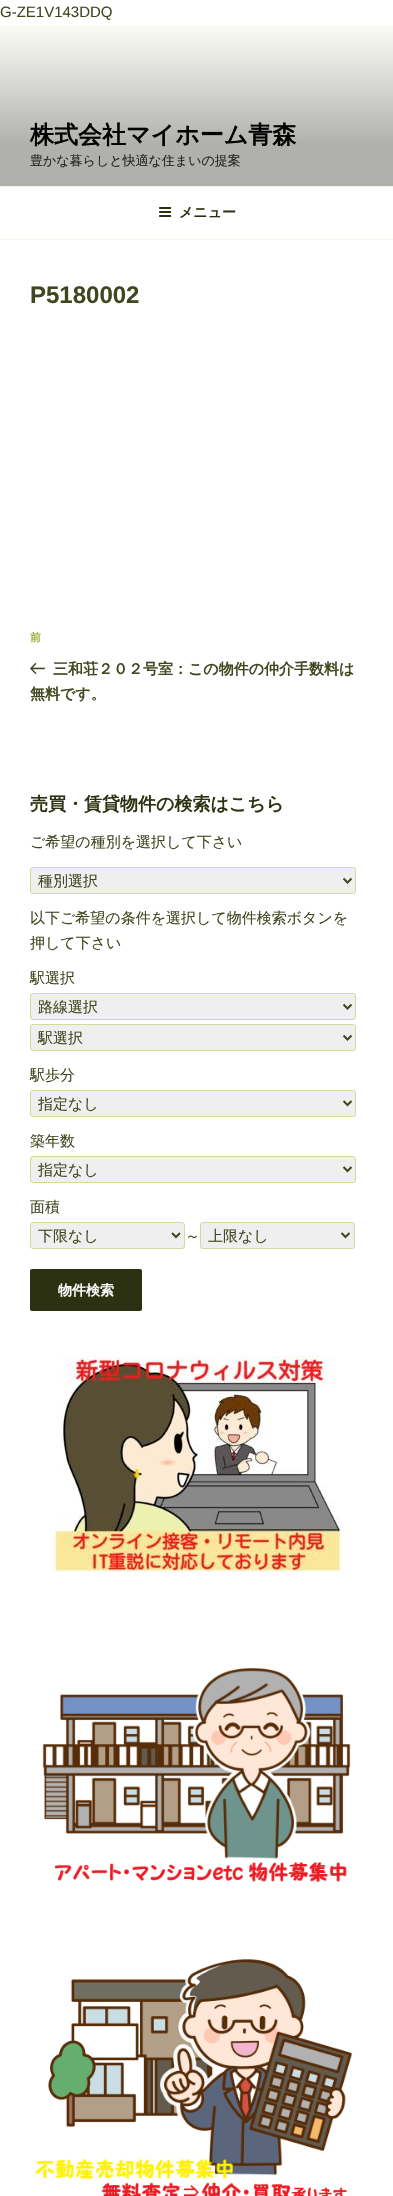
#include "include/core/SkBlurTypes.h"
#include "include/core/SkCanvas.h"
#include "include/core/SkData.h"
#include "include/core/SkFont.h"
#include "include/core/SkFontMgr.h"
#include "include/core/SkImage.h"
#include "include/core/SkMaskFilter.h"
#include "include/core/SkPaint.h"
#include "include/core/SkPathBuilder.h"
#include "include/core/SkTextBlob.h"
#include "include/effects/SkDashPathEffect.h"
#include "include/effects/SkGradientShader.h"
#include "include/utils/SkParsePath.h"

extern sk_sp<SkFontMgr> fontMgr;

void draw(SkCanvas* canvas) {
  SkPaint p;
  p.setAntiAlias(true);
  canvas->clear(SK_ColorWHITE);
  {
    const SkColor colors[] = {SkColorSetRGB(252, 252, 247), SkColorSetRGB(176, 176, 173), SkColorSetRGB(176, 176, 173)};
    const float stops[] = {0, 0.75f, 1};
    const SkPoint ends[] = {{197, 25}, {197, 186}};
    p.setShader(SkGradientShader::MakeLinear(ends, colors, stops, 3, SkTileMode::kClamp));
    p.setAlpha(255);
  }
  canvas->drawRect(SkRect::MakeLTRB(0, 25, 393, 186), p);
  p.setShader(nullptr);
  p.setColor(SkColorSetRGB(243, 246, 228));
  canvas->drawRect(SkRect::MakeLTRB(0, 186, 393, 187), p);
  canvas->drawRect(SkRect::MakeLTRB(0, 239, 393, 240), p);
  canvas->drawImageRect(SkImages::DeferredFromEncodedData(SkData::MakeFromFileName("images/1.png")), SkRect::MakeLTRB(159, 207, 172, 217), SkSamplingOptions());
  canvas->drawImageRect(SkImages::DeferredFromEncodedData(SkData::MakeFromFileName("images/2.png")), SkRect::MakeLTRB(30, 663, 45, 674), SkSamplingOptions());
  p.setColor(SkColorSetRGB(239, 239, 239));
  canvas->drawRoundRect(SkRect::MakeLTRB(30.5f, 867.5f, 355.5f, 893.5f), 2.5f, 2.5f, p);
  p.setStyle(SkPaint::kStroke_Style);
  p.setStrokeWidth(1);
  p.setColor(SkColorSetRGB(208, 221, 152));
  canvas->drawRoundRect(SkRect::MakeLTRB(30.5f, 867.5f, 355.5f, 893.5f), 2.5f, 2.5f, p);
  p.setStrokeWidth(2);
  p.setColor(SkColorSetRGB(64, 71, 31));
  canvas->drawPath(SkPathBuilder().moveTo(343.5f, 878.5f).lineTo(347.5f, 882.5f).lineTo(351.5f, 878.5f).detach(), p);
  p.setStyle(SkPaint::kFill_Style);
  p.setColor(SkColorSetRGB(239, 239, 239));
  canvas->drawRoundRect(SkRect::MakeLTRB(30.5f, 993.5f, 355.5f, 1019.5f), 2.5f, 2.5f, p);
  p.setStyle(SkPaint::kStroke_Style);
  p.setStrokeWidth(1);
  p.setColor(SkColorSetRGB(208, 221, 152));
  canvas->drawRoundRect(SkRect::MakeLTRB(30.5f, 993.5f, 355.5f, 1019.5f), 2.5f, 2.5f, p);
  p.setStrokeWidth(2);
  p.setColor(SkColorSetRGB(64, 71, 31));
  canvas->drawPath(SkPathBuilder().moveTo(343.5f, 1004.5f).lineTo(347.5f, 1008.5f).lineTo(351.5f, 1004.5f).detach(), p);
  p.setStyle(SkPaint::kFill_Style);
  p.setColor(SkColorSetRGB(239, 239, 239));
  canvas->drawRoundRect(SkRect::MakeLTRB(30.5f, 1024.5f, 355.5f, 1050.5f), 2.5f, 2.5f, p);
  p.setStyle(SkPaint::kStroke_Style);
  p.setStrokeWidth(1);
  p.setColor(SkColorSetRGB(208, 221, 152));
  canvas->drawRoundRect(SkRect::MakeLTRB(30.5f, 1024.5f, 355.5f, 1050.5f), 2.5f, 2.5f, p);
  p.setStrokeWidth(2);
  p.setColor(SkColorSetRGB(64, 71, 31));
  canvas->drawPath(SkPathBuilder().moveTo(343.5f, 1035.5f).lineTo(347.5f, 1039.5f).lineTo(351.5f, 1035.5f).detach(), p);
  p.setStyle(SkPaint::kFill_Style);
  p.setColor(SkColorSetRGB(239, 239, 239));
  canvas->drawRoundRect(SkRect::MakeLTRB(30.5f, 1090.5f, 355.5f, 1116.5f), 2.5f, 2.5f, p);
  p.setStyle(SkPaint::kStroke_Style);
  p.setStrokeWidth(1);
  p.setColor(SkColorSetRGB(208, 221, 152));
  canvas->drawRoundRect(SkRect::MakeLTRB(30.5f, 1090.5f, 355.5f, 1116.5f), 2.5f, 2.5f, p);
  p.setStrokeWidth(2);
  p.setColor(SkColorSetRGB(64, 71, 31));
  canvas->drawPath(SkPathBuilder().moveTo(343.5f, 1101).lineTo(347.5f, 1105).lineTo(351.5f, 1101).detach(), p);
  p.setStyle(SkPaint::kFill_Style);
  p.setColor(SkColorSetRGB(239, 239, 239));
  canvas->drawRoundRect(SkRect::MakeLTRB(30.5f, 1156.5f, 355.5f, 1182.5f), 2.5f, 2.5f, p);
  p.setStyle(SkPaint::kStroke_Style);
  p.setStrokeWidth(1);
  p.setColor(SkColorSetRGB(208, 221, 152));
  canvas->drawRoundRect(SkRect::MakeLTRB(30.5f, 1156.5f, 355.5f, 1182.5f), 2.5f, 2.5f, p);
  p.setStrokeWidth(2);
  p.setColor(SkColorSetRGB(64, 71, 31));
  canvas->drawPath(SkPathBuilder().moveTo(343.5f, 1167).lineTo(347.5f, 1171).lineTo(351.5f, 1167).detach(), p);
  p.setStyle(SkPaint::kFill_Style);
  p.setColor(SkColorSetRGB(239, 239, 239));
  canvas->drawRoundRect(SkRect::MakeLTRB(30.5f, 1222.5f, 184.5f, 1248.5f), 2.5f, 2.5f, p);
  p.setStyle(SkPaint::kStroke_Style);
  p.setStrokeWidth(1);
  p.setColor(SkColorSetRGB(208, 221, 152));
  canvas->drawRoundRect(SkRect::MakeLTRB(30.5f, 1222.5f, 184.5f, 1248.5f), 2.5f, 2.5f, p);
  p.setStrokeWidth(2);
  p.setColor(SkColorSetRGB(64, 71, 31));
  canvas->drawPath(SkPathBuilder().moveTo(172, 1233).lineTo(176, 1237).lineTo(180, 1233).detach(), p);
  p.setStyle(SkPaint::kFill_Style);
  p.setColor(SkColorSetRGB(239, 239, 239));
  canvas->drawRoundRect(SkRect::MakeLTRB(200.5f, 1222.5f, 354.5f, 1248.5f), 2.5f, 2.5f, p);
  p.setStyle(SkPaint::kStroke_Style);
  p.setStrokeWidth(1);
  p.setColor(SkColorSetRGB(208, 221, 152));
  canvas->drawRoundRect(SkRect::MakeLTRB(200.5f, 1222.5f, 354.5f, 1248.5f), 2.5f, 2.5f, p);
  p.setStrokeWidth(2);
  p.setColor(SkColorSetRGB(64, 71, 31));
  canvas->drawPath(SkPathBuilder().moveTo(341.5f, 1233).lineTo(345.5f, 1237).lineTo(349.5f, 1233).detach(), p);
  p.setStyle(SkPaint::kFill_Style);
  p.setColor(SkColorSetRGB(44, 50, 17));
  canvas->drawRoundRect(SkRect::MakeLTRB(30, 1269, 142, 1311), 2, 2, p);
  canvas->drawImageRect(SkImages::DeferredFromEncodedData(SkData::MakeFromFileName("images/3.png")), SkRect::MakeLTRB(47, 1356, 344, 1572), SkSamplingOptions());
  canvas->drawImageRect(SkImages::DeferredFromEncodedData(SkData::MakeFromFileName("images/4.png")), SkRect::MakeLTRB(42, 1668, 351, 1883), SkSamplingOptions());
  canvas->drawImageRect(SkImages::DeferredFromEncodedData(SkData::MakeFromFileName("images/5.png")), SkRect::MakeLTRB(35, 1959, 353, 2196), SkSamplingOptions());
  SkFont font1(fontMgr->matchFamilyStyle("Liberation Sans", SkFontStyle::Normal()), 15);
  font1.setSubpixel(true);
  p.setColor(SkColorSetRGB(64, 71, 31));
  canvas->drawString("G-ZE1V143DDQ", 0, 17, font1, p);
  SkFont font2(fontMgr->matchFamilyStyle("WenQuanYi Zen Hei", SkFontStyle::Bold()), 24);
  font2.setSubpixel(true);
  p.setColor(SK_ColorBLACK);
  canvas->drawString("株式会社マイホーム青森", 30, 143, font2, p);
  SkFont font3(fontMgr->matchFamilyStyle("WenQuanYi Zen Hei", SkFontStyle(500, SkFontStyle::kNormal_Width, SkFontStyle::kUpright_Slant)), 13);
  font3.setSubpixel(true);
  p.setColor(SkColorSetRGB(35, 35, 35));
  canvas->drawString("豊かな暮らしと快適な住まいの提案", 30, 165, font3, p);
  SkFont font4(fontMgr->matchFamilyStyle("WenQuanYi Zen Hei", SkFontStyle::Bold()), 14);
  font4.setSubpixel(true);
  p.setColor(SkColorSetRGB(44, 50, 17));
  canvas->drawString("メニュー", 179, 217, font4, p);
  SkFont font5(fontMgr->matchFamilyStyle("Liberation Sans", SkFontStyle::Bold()), 24);
  font5.setSubpixel(true);
  p.setColor(SkColorSetRGB(64, 71, 31));
  canvas->drawString("P5180002", 30, 303, font5, p);
  SkFont font6(fontMgr->matchFamilyStyle("WenQuanYi Zen Hei", SkFontStyle::Bold()), 11);
  font6.setSubpixel(true);
  p.setColor(SkColorSetRGB(154, 176, 59));
  canvas->drawString("前", 30, 641, font6, p);
  SkFont font7(fontMgr->matchFamilyStyle("WenQuanYi Zen Hei", SkFontStyle::Bold()), 15);
  font7.setSubpixel(true);
  p.setColor(SkColorSetRGB(64, 71, 31));
  canvas->drawString("三和荘２０２号室：この物件の仲介手数料は", 53, 674, font7, p);
  canvas->drawString("無料です。", 30, 699, font7, p);
  SkFont font8(fontMgr->matchFamilyStyle("WenQuanYi Zen Hei", SkFontStyle::Bold()), 18);
  font8.setSubpixel(true);
  p.setColor(SkColorSetRGB(44, 50, 17));
  canvas->drawString("売買・賃貸物件の検索はこちら", 30, 810, font8, p);
  SkFont font9(fontMgr->matchFamilyStyle("WenQuanYi Zen Hei", SkFontStyle(500, SkFontStyle::kNormal_Width, SkFontStyle::kUpright_Slant)), 15);
  font9.setSubpixel(true);
  p.setColor(SkColorSetRGB(64, 71, 31));
  canvas->drawString("ご希望の種別を選択して下さい", 30, 847, font9, p);
  canvas->drawString("種別選択", 38, 886, font9, p);
  canvas->drawString("以下ご希望の条件を選択して物件検索ボタンを", 30, 923, font9, p);
  canvas->drawString("押して下さい", 30, 948, font9, p);
  canvas->drawString("駅選択", 30, 983, font9, p);
  canvas->drawString("路線選択", 38, 1012, font9, p);
  canvas->drawString("駅選択", 38, 1043, font9, p);
  canvas->drawString("駅歩分", 30, 1080, font9, p);
  canvas->drawString("指定なし", 38, 1109, font9, p);
  canvas->drawString("築年数", 30, 1146, font9, p);
  canvas->drawString("指定なし", 38, 1175, font9, p);
  canvas->drawString("面積", 30, 1212, font9, p);
  canvas->drawString("下限なし", 38, 1241, font9, p);
  canvas->drawString("～", 185, 1241, font9, p);
  canvas->drawString("上限なし", 208, 1241, font9, p);
  p.setColor(SK_ColorWHITE);
  canvas->drawString("物件検索", 58, 1295, font4, p);
}
